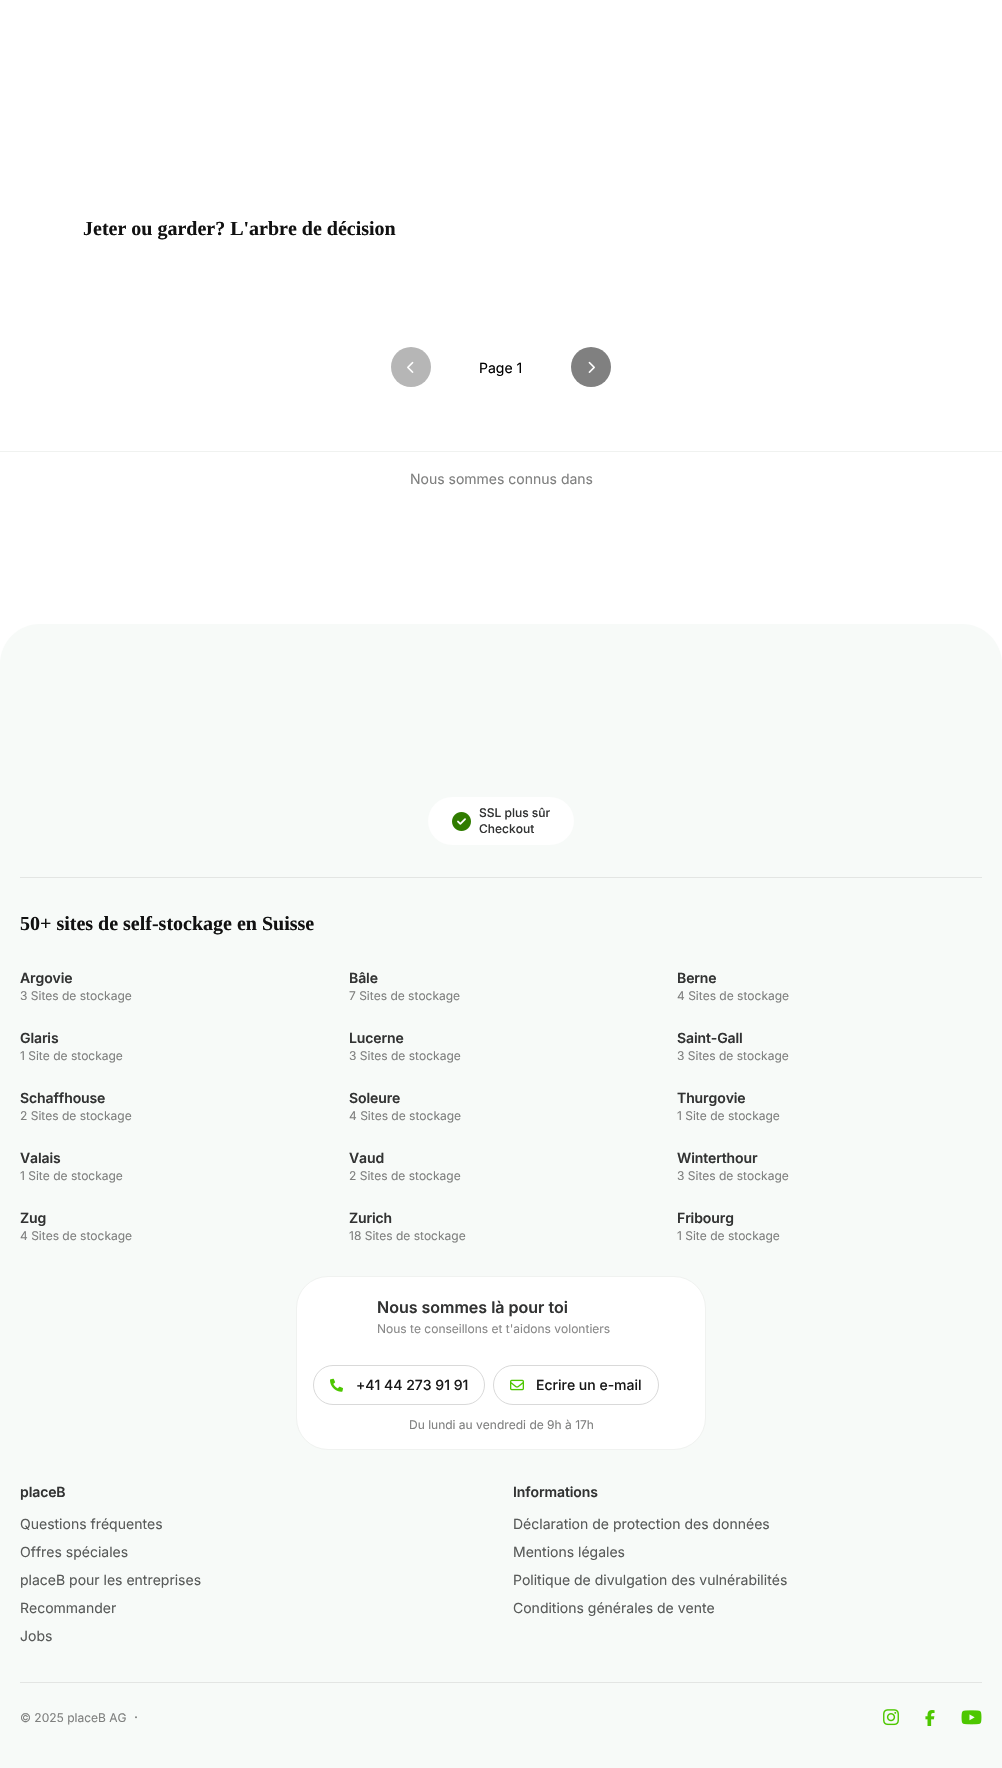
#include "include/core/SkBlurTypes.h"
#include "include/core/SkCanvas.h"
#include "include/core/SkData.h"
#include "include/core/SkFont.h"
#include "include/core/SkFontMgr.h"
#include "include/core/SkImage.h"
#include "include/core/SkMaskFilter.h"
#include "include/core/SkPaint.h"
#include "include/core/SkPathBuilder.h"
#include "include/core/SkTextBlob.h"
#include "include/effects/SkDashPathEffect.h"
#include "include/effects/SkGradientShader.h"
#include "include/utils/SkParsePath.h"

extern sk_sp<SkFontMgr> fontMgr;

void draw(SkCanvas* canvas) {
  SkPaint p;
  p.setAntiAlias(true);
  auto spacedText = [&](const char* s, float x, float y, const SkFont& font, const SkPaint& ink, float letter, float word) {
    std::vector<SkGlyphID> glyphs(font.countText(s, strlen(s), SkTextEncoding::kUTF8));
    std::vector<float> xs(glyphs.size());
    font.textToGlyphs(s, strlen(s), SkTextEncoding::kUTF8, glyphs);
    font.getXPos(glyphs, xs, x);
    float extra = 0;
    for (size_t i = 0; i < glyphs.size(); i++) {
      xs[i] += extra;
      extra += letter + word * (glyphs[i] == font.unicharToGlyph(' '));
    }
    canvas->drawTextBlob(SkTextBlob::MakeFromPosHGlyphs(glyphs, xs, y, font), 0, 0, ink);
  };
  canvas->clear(SK_ColorWHITE);
  p.setColor(SkColorSetRGB(182, 182, 182));
  canvas->drawCircle(411, 367, 20, p);
  canvas->drawImageRect(SkImages::DeferredFromEncodedData(SkData::MakeFromFileName("images/1.png")), SkRect::MakeLTRB(407, 361, 414, 373), SkSamplingOptions());
  p.setColor(SkColorSetRGB(128, 128, 128));
  canvas->drawCircle(591, 367, 20, p);
  canvas->drawImageRect(SkImages::DeferredFromEncodedData(SkData::MakeFromFileName("images/2.png")), SkRect::MakeLTRB(588, 361, 595, 373), SkSamplingOptions());
  p.setColor(SkColorSetRGB(240, 242, 240));
  canvas->drawRect(SkRect::MakeLTRB(0, 451, 1002, 452), p);
  p.setColor(SkColorSetRGB(247, 250, 248));
  canvas->drawPath(SkPathBuilder().moveTo(40, 624).lineTo(962, 624).cubicTo(984, 624, 1002, 642, 1002, 664).lineTo(1002, 1768).lineTo(0, 1768).lineTo(0, 664).cubicTo(0, 642, 18, 624, 40, 624).close().detach(), p);
  p.setColor(SkColorSetRGB(227, 229, 227));
  canvas->drawRect(SkRect::MakeLTRB(20, 877, 982, 878), p);
  p.setColor(SK_ColorWHITE);
  canvas->drawRoundRect(SkRect::MakeLTRB(428, 797, 574, 845), 24, 24, p);
  canvas->drawImageRect(SkImages::DeferredFromEncodedData(SkData::MakeFromFileName("images/3.png")), SkRect::MakeLTRB(452, 812, 471, 831), SkSamplingOptions());
  p.setColor(SkColorSetRGB(227, 229, 227));
  canvas->drawRect(SkRect::MakeLTRB(20, 1682, 982, 1683), p);
  p.setColor(SK_ColorWHITE);
  canvas->drawRoundRect(SkRect::MakeLTRB(296.5f, 1276.5f, 705.5f, 1449.5f), 31.5f, 31.5f, p);
  p.setStyle(SkPaint::kStroke_Style);
  p.setStrokeWidth(1);
  p.setColor(SkColorSetRGB(240, 242, 240));
  canvas->drawRoundRect(SkRect::MakeLTRB(296.5f, 1276.5f, 705.5f, 1449.5f), 31.5f, 31.5f, p);
  p.setColor(SkColorSetRGB(217, 217, 217));
  canvas->drawRoundRect(SkRect::MakeLTRB(313.5f, 1365.5f, 484.5f, 1404.5f), 19.5f, 19.5f, p);
  canvas->drawImageRect(SkImages::DeferredFromEncodedData(SkData::MakeFromFileName("images/4.png")), SkRect::MakeLTRB(330, 1378, 343, 1392), SkSamplingOptions());
  canvas->drawRoundRect(SkRect::MakeLTRB(493.5f, 1365.5f, 658.5f, 1404.5f), 19.5f, 19.5f, p);
  canvas->drawImageRect(SkImages::DeferredFromEncodedData(SkData::MakeFromFileName("images/5.png")), SkRect::MakeLTRB(510, 1379, 524, 1391), SkSamplingOptions());
  p.setStyle(SkPaint::kFill_Style);
  p.setColor(SkColorSetRGB(127, 128, 127));
  canvas->drawCircle(136, 1717.2f, 1, p);
  canvas->drawImageRect(SkImages::DeferredFromEncodedData(SkData::MakeFromFileName("images/6.png")), SkRect::MakeLTRB(883, 1709, 899, 1726), SkSamplingOptions());
  canvas->drawImageRect(SkImages::DeferredFromEncodedData(SkData::MakeFromFileName("images/7.png")), SkRect::MakeLTRB(925, 1710, 935, 1726), SkSamplingOptions());
  canvas->drawImageRect(SkImages::DeferredFromEncodedData(SkData::MakeFromFileName("images/8.png")), SkRect::MakeLTRB(961, 1710, 982, 1725), SkSamplingOptions());
  SkFont font1(fontMgr->matchFamilyStyle("Liberation Serif", SkFontStyle::Bold()), 20);
  font1.setSubpixel(true);
  p.setColor(SkColorSetRGB(17, 17, 17));
  canvas->drawString("Jeter ou garder? L'arbre de décision", 83, 235, font1, p);
  SkFont font2(fontMgr->matchFamilyStyle("Inter", SkFontStyle::Normal()), 14);
  font2.setSubpixel(true);
  p.setColor(SK_ColorBLACK);
  canvas->drawString("Page 1", 479, 373, font2, p);
  p.setColor(SkColorSetRGB(127, 128, 127));
  canvas->drawString("Nous sommes connus dans", 410, 484, font2, p);
  SkFont font3(fontMgr->matchFamilyStyle("Inter", SkFontStyle(500, SkFontStyle::kNormal_Width, SkFontStyle::kUpright_Slant)), 12);
  font3.setSubpixel(true);
  p.setColor(SkColorSetRGB(50, 51, 51));
  canvas->drawString("SSL plus sûr", 479, 817, font3, p);
  canvas->drawString("Checkout", 479, 833, font3, p);
  p.setColor(SkColorSetRGB(17, 17, 17));
  canvas->drawString("50+ sites de self-stockage en Suisse", 20, 930, font1, p);
  SkFont font4(fontMgr->matchFamilyStyle("Inter", SkFontStyle(600, SkFontStyle::kNormal_Width, SkFontStyle::kUpright_Slant)), 14);
  font4.setSubpixel(true);
  p.setColor(SkColorSetRGB(50, 51, 51));
  spacedText("Argovie", 20, 983, font4, p, -0.1f, 0);
  SkFont font5(fontMgr->matchFamilyStyle("Inter", SkFontStyle::Normal()), 12);
  font5.setSubpixel(true);
  p.setColor(SkColorSetRGB(127, 128, 127));
  canvas->drawString("3 Sites de stockage", 20, 1000, font5, p);
  p.setColor(SkColorSetRGB(50, 51, 51));
  spacedText("Bâle", 349, 983, font4, p, -0.1f, 0);
  p.setColor(SkColorSetRGB(127, 128, 127));
  canvas->drawString("7 Sites de stockage", 349, 1000, font5, p);
  p.setColor(SkColorSetRGB(50, 51, 51));
  spacedText("Berne", 677, 983, font4, p, -0.1f, 0);
  p.setColor(SkColorSetRGB(127, 128, 127));
  canvas->drawString("4 Sites de stockage", 677, 1000, font5, p);
  p.setColor(SkColorSetRGB(50, 51, 51));
  spacedText("Glaris", 20, 1043, font4, p, -0.1f, 0);
  p.setColor(SkColorSetRGB(127, 128, 127));
  canvas->drawString("1 Site de stockage", 20, 1060, font5, p);
  p.setColor(SkColorSetRGB(50, 51, 51));
  spacedText("Lucerne", 349, 1043, font4, p, -0.1f, 0);
  p.setColor(SkColorSetRGB(127, 128, 127));
  canvas->drawString("3 Sites de stockage", 349, 1060, font5, p);
  p.setColor(SkColorSetRGB(50, 51, 51));
  spacedText("Saint-Gall", 677, 1043, font4, p, -0.1f, 0);
  p.setColor(SkColorSetRGB(127, 128, 127));
  canvas->drawString("3 Sites de stockage", 677, 1060, font5, p);
  p.setColor(SkColorSetRGB(50, 51, 51));
  spacedText("Schaffhouse", 20, 1103, font4, p, -0.1f, 0);
  p.setColor(SkColorSetRGB(127, 128, 127));
  canvas->drawString("2 Sites de stockage", 20, 1120, font5, p);
  p.setColor(SkColorSetRGB(50, 51, 51));
  spacedText("Soleure", 349, 1103, font4, p, -0.1f, 0);
  p.setColor(SkColorSetRGB(127, 128, 127));
  canvas->drawString("4 Sites de stockage", 349, 1120, font5, p);
  p.setColor(SkColorSetRGB(50, 51, 51));
  spacedText("Thurgovie", 677, 1103, font4, p, -0.1f, 0);
  p.setColor(SkColorSetRGB(127, 128, 127));
  canvas->drawString("1 Site de stockage", 677, 1120, font5, p);
  p.setColor(SkColorSetRGB(50, 51, 51));
  spacedText("Valais", 20, 1163, font4, p, -0.1f, 0);
  p.setColor(SkColorSetRGB(127, 128, 127));
  canvas->drawString("1 Site de stockage", 20, 1180, font5, p);
  p.setColor(SkColorSetRGB(50, 51, 51));
  spacedText("Vaud", 349, 1163, font4, p, -0.1f, 0);
  p.setColor(SkColorSetRGB(127, 128, 127));
  canvas->drawString("2 Sites de stockage", 349, 1180, font5, p);
  p.setColor(SkColorSetRGB(50, 51, 51));
  spacedText("Winterthour", 677, 1163, font4, p, -0.1f, 0);
  p.setColor(SkColorSetRGB(127, 128, 127));
  canvas->drawString("3 Sites de stockage", 677, 1180, font5, p);
  p.setColor(SkColorSetRGB(50, 51, 51));
  spacedText("Zug", 20, 1223, font4, p, -0.1f, 0);
  p.setColor(SkColorSetRGB(127, 128, 127));
  canvas->drawString("4 Sites de stockage", 20, 1240, font5, p);
  p.setColor(SkColorSetRGB(50, 51, 51));
  spacedText("Zurich", 349, 1223, font4, p, -0.1f, 0);
  p.setColor(SkColorSetRGB(127, 128, 127));
  canvas->drawString("18 Sites de stockage", 349, 1240, font5, p);
  p.setColor(SkColorSetRGB(50, 51, 51));
  spacedText("Fribourg", 677, 1223, font4, p, -0.1f, 0);
  p.setColor(SkColorSetRGB(127, 128, 127));
  canvas->drawString("1 Site de stockage", 677, 1240, font5, p);
  SkFont font6(fontMgr->matchFamilyStyle("Inter", SkFontStyle(600, SkFontStyle::kNormal_Width, SkFontStyle::kUpright_Slant)), 16);
  font6.setSubpixel(true);
  p.setColor(SkColorSetRGB(50, 51, 51));
  canvas->drawString("Nous sommes là pour toi", 377, 1313, font6, p);
  p.setColor(SkColorSetRGB(136, 136, 136));
  canvas->drawString("Nous te conseillons et t'aidons volontiers", 377, 1333, font5, p);
  SkFont font7(fontMgr->matchFamilyStyle("Inter", SkFontStyle(500, SkFontStyle::kNormal_Width, SkFontStyle::kUpright_Slant)), 14);
  font7.setSubpixel(true);
  p.setColor(SkColorSetRGB(25, 25, 25));
  canvas->drawString("+41 44 273 91 91", 356, 1390, font7, p);
  canvas->drawString("Ecrire un e-mail", 536, 1390, font7, p);
  p.setColor(SkColorSetRGB(127, 128, 127));
  canvas->drawString("Du lundi au vendredi de 9h à 17h", 409, 1429, font5, p);
  p.setColor(SkColorSetRGB(50, 51, 51));
  spacedText("placeB", 20, 1497, font4, p, -0.1f, 0);
  p.setColor(SkColorSetRGB(89, 91, 90));
  canvas->drawString("Questions fréquentes", 20, 1529, font2, p);
  canvas->drawString("Offres spéciales", 20, 1557, font2, p);
  canvas->drawString("placeB pour les entreprises", 20, 1585, font2, p);
  canvas->drawString("Recommander", 20, 1613, font2, p);
  canvas->drawString("Jobs", 20, 1641, font2, p);
  p.setColor(SkColorSetRGB(50, 51, 51));
  spacedText("Informations", 513, 1497, font4, p, -0.1f, 0);
  p.setColor(SkColorSetRGB(89, 91, 90));
  canvas->drawString("Déclaration de protection des données", 513, 1529, font2, p);
  canvas->drawString("Mentions légales", 513, 1557, font2, p);
  canvas->drawString("Politique de divulgation des vulnérabilités", 513, 1585, font2, p);
  canvas->drawString("Conditions générales de vente", 513, 1613, font2, p);
  p.setColor(SkColorSetRGB(127, 128, 127));
  canvas->drawString("© 2025 placeB AG", 20, 1722, font5, p);
}
